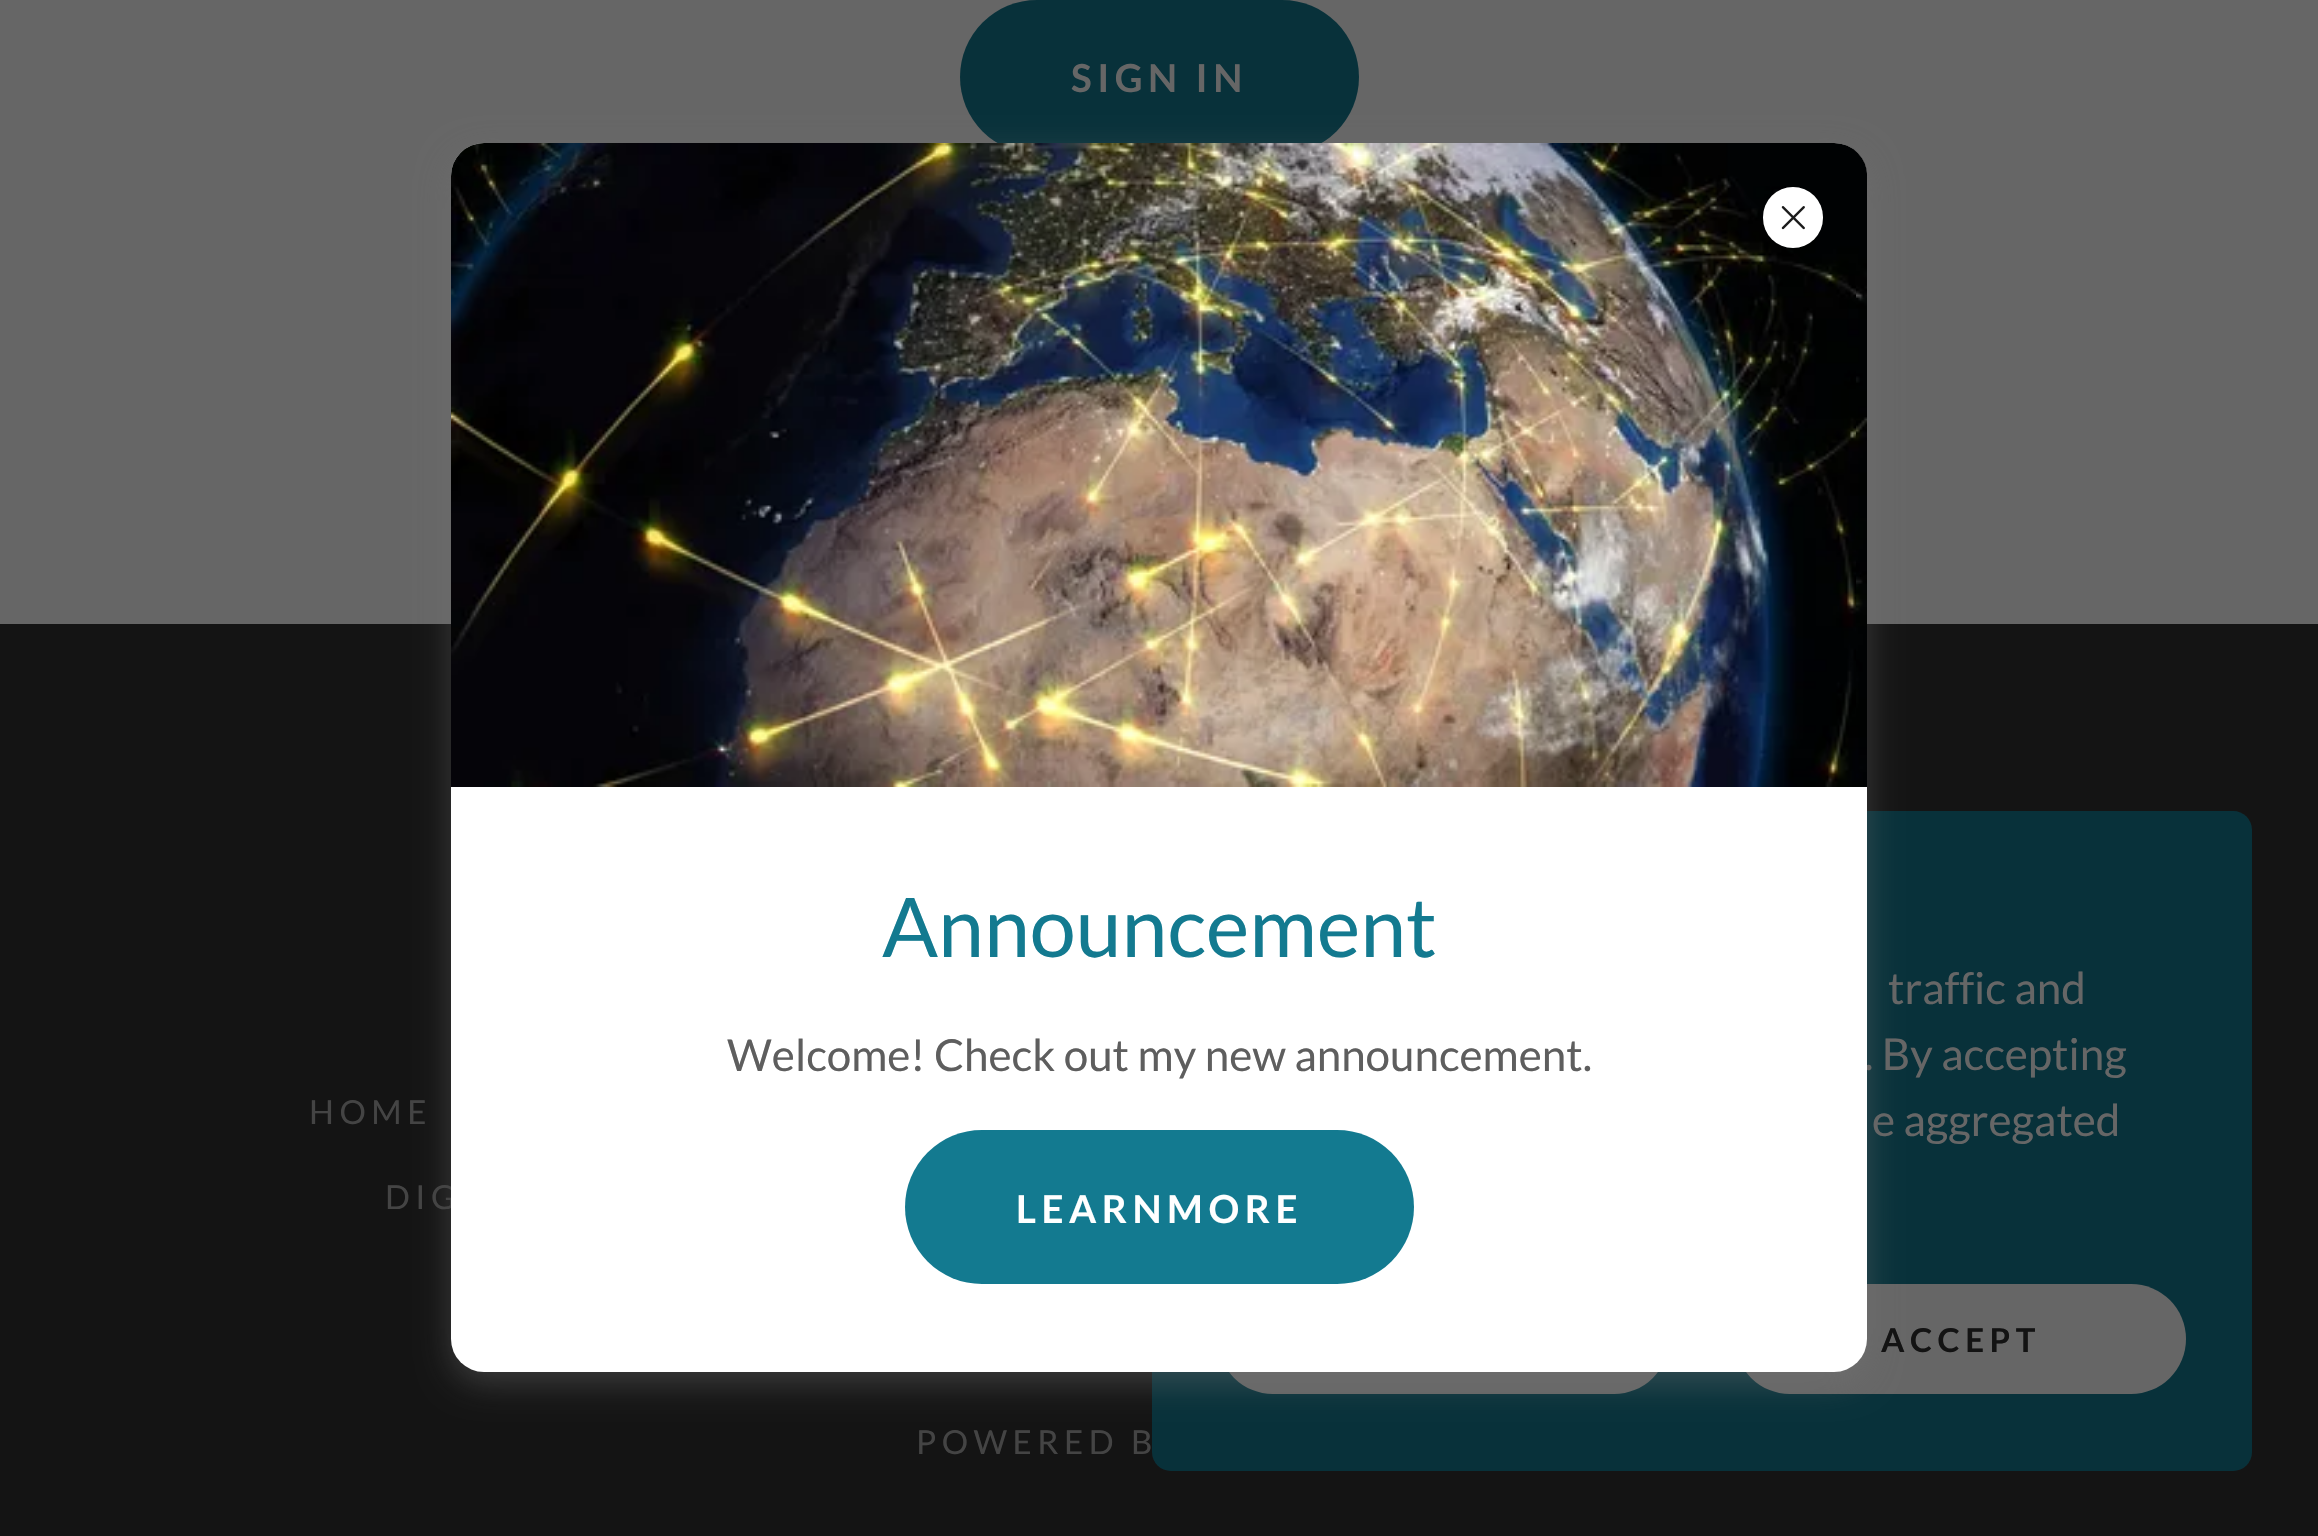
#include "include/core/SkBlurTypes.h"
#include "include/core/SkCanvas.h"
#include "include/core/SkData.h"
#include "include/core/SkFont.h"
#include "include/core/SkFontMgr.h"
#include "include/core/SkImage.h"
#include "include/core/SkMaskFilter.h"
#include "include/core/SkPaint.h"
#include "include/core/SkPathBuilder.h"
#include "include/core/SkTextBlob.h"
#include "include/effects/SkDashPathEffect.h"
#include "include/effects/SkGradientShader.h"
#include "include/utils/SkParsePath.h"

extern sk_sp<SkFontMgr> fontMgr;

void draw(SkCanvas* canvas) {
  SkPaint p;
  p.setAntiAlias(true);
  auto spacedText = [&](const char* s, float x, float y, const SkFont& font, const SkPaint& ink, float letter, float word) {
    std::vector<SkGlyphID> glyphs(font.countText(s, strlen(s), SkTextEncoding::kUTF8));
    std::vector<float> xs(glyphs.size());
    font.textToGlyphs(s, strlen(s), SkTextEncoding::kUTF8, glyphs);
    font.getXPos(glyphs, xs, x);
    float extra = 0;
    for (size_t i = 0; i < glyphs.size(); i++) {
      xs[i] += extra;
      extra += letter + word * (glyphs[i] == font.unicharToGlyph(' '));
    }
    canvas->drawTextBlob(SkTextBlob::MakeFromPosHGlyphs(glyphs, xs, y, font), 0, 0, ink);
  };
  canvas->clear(SkColorSetRGB(20, 20, 20));
  p.setColor(SkColorSetRGB(102, 102, 102));
  canvas->drawRect(SkRect::MakeLTRB(0, 0, 2318, 624), p);
  p.setColor(SkColorSetRGB(8, 49, 58));
  canvas->drawRoundRect(SkRect::MakeLTRB(960, 0, 1359, 154), 77, 77, p);
  canvas->drawRoundRect(SkRect::MakeLTRB(1152, 811, 2252, 1471), 19, 19, p);
  p.setColor(SkColorSetRGB(102, 102, 102));
  canvas->drawRoundRect(SkRect::MakeLTRB(1218, 1284, 1669, 1394), 55, 55, p);
  canvas->drawRoundRect(SkRect::MakeLTRB(1735, 1284, 2186, 1394), 55, 55, p);
  p.setColor(SkColorSetARGB(102, 117, 117, 117));
  p.setMaskFilter(SkMaskFilter::MakeBlur(kNormal_SkBlurStyle, 16.5f));
  canvas->drawRoundRect(SkRect::MakeLTRB(451, 154, 1867, 1383), 33, 33, p);
  p.setMaskFilter(nullptr);
  SkFont font1(fontMgr->matchFamilyStyle("Lato", SkFontStyle::Bold()), 38.5f);
  font1.setSubpixel(true);
  p.setColor(SkColorSetRGB(102, 102, 102));
  spacedText("SIGN IN", 1071, 92, font1, p, 5.5f, 0);
  SkFont font2(fontMgr->matchFamilyStyle("Lato", SkFontStyle::Normal()), 44);
  font2.setSubpixel(true);
  canvas->drawString("traffic and", 1888, 1004, font2, p);
  canvas->drawString(". By accepting", 1864, 1070, font2, p);
  canvas->drawString("e aggregated", 1872, 1136, font2, p);
  SkFont font3(fontMgr->matchFamilyStyle("Lato", SkFontStyle::Bold()), 33);
  font3.setSubpixel(true);
  p.setColor(SkColorSetRGB(19, 19, 19));
  spacedText("ACCEPT", 1881, 1352, font3, p, 5.5f, 0);
  SkFont font4(fontMgr->matchFamilyStyle("Lato", SkFontStyle::Normal()), 33);
  font4.setSubpixel(true);
  p.setColor(SkColorSetRGB(68, 68, 68));
  spacedText("HOME", 309, 1124, font4, p, 5.5f, 0);
  spacedText("DIG", 385, 1209, font4, p, 5.5f, 0);
  p.setColor(SK_ColorWHITE);
  canvas->drawRoundRect(SkRect::MakeLTRB(451, 143, 1867, 1372), 33, 33, p);
  canvas->drawImageRect(SkImages::DeferredFromEncodedData(SkData::MakeFromFileName("images/2.png")), SkRect::MakeLTRB(451, 143, 1867, 787), SkSamplingOptions());
  canvas->drawRoundRect(SkRect::MakeLTRB(1763, 187, 1823, 248), 30, 30, p);
  canvas->drawImageRect(SkImages::DeferredFromEncodedData(SkData::MakeFromFileName("images/1.png")), SkRect::MakeLTRB(1781, 206, 1805, 230), SkSamplingOptions());
  p.setColor(SkColorSetRGB(19, 122, 144));
  canvas->drawRoundRect(SkRect::MakeLTRB(905, 1130, 1414, 1284), 77, 77, p);
  p.setColor(SK_ColorWHITE);
  spacedText("LEARNMORE", 1016, 1223, font1, p, 5.5f, 0);
  p.setColor(SkColorSetRGB(94, 94, 94));
  canvas->drawString("Welcome! Check out my new announcement.", 727, 1071, font2, p);
  SkFont font5(fontMgr->matchFamilyStyle("Lato", SkFontStyle::Normal()), 82.5f);
  font5.setSubpixel(true);
  p.setColor(SkColorSetRGB(19, 122, 144));
  canvas->drawString("Announcement", 882, 957, font5, p);
  p.setColor(SkColorSetRGB(68, 68, 68));
  spacedText("POWERED B", 916, 1454, font4, p, 5.5f, 0);
}
